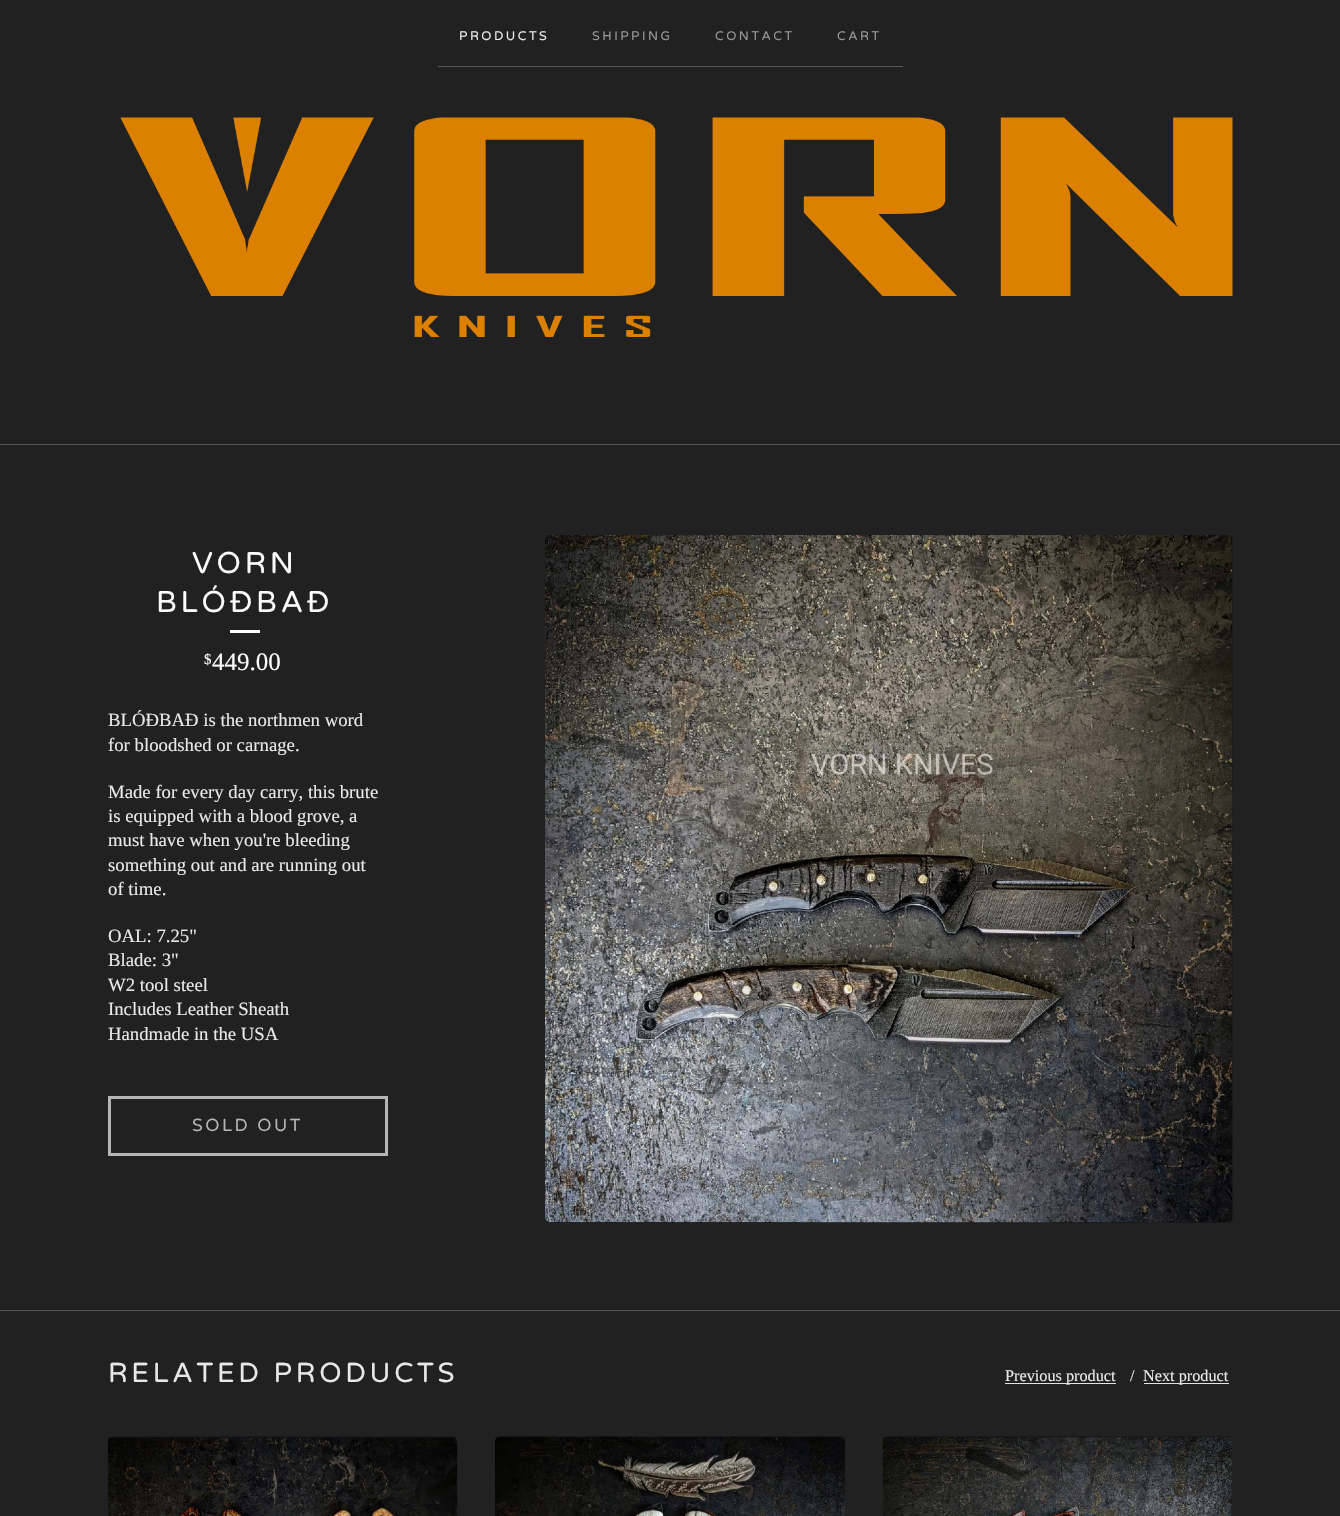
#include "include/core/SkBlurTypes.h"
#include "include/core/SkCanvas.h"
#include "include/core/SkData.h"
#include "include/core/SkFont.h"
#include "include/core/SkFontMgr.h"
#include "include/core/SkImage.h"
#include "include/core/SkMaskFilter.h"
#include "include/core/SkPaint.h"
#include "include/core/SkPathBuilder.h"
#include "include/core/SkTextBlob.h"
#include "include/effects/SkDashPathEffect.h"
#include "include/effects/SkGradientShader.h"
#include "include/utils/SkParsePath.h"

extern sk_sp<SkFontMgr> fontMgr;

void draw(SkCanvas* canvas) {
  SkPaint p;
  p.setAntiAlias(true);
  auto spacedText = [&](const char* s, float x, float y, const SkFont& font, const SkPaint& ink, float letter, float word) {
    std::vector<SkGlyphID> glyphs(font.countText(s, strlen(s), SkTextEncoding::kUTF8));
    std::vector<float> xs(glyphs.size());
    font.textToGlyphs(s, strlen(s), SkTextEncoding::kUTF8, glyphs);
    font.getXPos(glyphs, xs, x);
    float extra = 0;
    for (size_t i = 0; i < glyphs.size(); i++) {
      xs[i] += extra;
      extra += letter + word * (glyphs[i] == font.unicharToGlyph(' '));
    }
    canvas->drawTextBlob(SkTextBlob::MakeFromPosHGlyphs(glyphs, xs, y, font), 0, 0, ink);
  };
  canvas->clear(SkColorSetRGB(33, 33, 33));
  p.setColor(SkColorSetRGB(87, 87, 87));
  canvas->drawRect(SkRect::MakeLTRB(438, 66, 903, 67), p);
  canvas->drawImageRect(SkImages::DeferredFromEncodedData(SkData::MakeFromFileName("images/1.png")), SkRect::MakeLTRB(120, 117, 1233, 337), SkSamplingOptions());
  canvas->drawRect(SkRect::MakeLTRB(0, 444, 1340, 445), p);
  canvas->drawRect(SkRect::MakeLTRB(0, 1310, 1340, 1311), p);
  p.setColor(SkColorSetRGB(252, 252, 252));
  canvas->drawRect(SkRect::MakeLTRB(230, 630, 260, 633), p);
  canvas->save();
  canvas->clipPath(SkPathBuilder().moveTo(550, 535).lineTo(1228, 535).cubicTo(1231, 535, 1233, 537, 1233, 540).lineTo(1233, 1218).cubicTo(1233, 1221, 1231, 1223, 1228, 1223).lineTo(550, 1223).cubicTo(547, 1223, 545, 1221, 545, 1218).lineTo(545, 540).cubicTo(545, 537, 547, 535, 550, 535).close().detach(), true);
  p.setColor(SkColorSetARGB(102, 0, 0, 0));
  p.setMaskFilter(SkMaskFilter::MakeBlur(kNormal_SkBlurStyle, 5));
  canvas->drawRoundRect(SkRect::MakeLTRB(545, 536, 1233, 1224), 5, 5, p);
  p.setMaskFilter(nullptr);
  canvas->restore();
  canvas->drawImageRect(SkImages::DeferredFromEncodedData(SkData::MakeFromFileName("images/2.png")), SkRect::MakeLTRB(545, 535, 1233, 1223), SkSamplingOptions());
  p.setStyle(SkPaint::kStroke_Style);
  p.setStrokeWidth(3);
  p.setColor(SkColorSetRGB(181, 181, 181));
  canvas->drawRect(SkRect::MakeLTRB(109.5f, 1097.5f, 386.5f, 1154.5f), p);
  p.setStyle(SkPaint::kFill_Style);
  p.setColor(SkColorSetRGB(227, 227, 227));
  canvas->drawRect(SkRect::MakeLTRB(1005, 1383, 1116, 1384), p);
  canvas->drawRect(SkRect::MakeLTRB(1144, 1383, 1229, 1384), p);
  canvas->drawImageRect(SkImages::DeferredFromEncodedData(SkData::MakeFromFileName("images/3.png")), SkRect::MakeLTRB(107, 1436, 458, 1516), SkSamplingOptions());
  canvas->drawImageRect(SkImages::DeferredFromEncodedData(SkData::MakeFromFileName("images/4.png")), SkRect::MakeLTRB(495, 1436, 845, 1516), SkSamplingOptions());
  canvas->drawImageRect(SkImages::DeferredFromEncodedData(SkData::MakeFromFileName("images/5.png")), SkRect::MakeLTRB(882, 1436, 1233, 1516), SkSamplingOptions());
  SkFont font1(fontMgr->matchFamilyStyle("Varela Round", SkFontStyle::Normal()), 12.5f);
  font1.setSubpixel(true);
  p.setColor(SkColorSetRGB(232, 232, 232));
  spacedText("PRODUCTS", 459, 40, font1, p, 2.5f, 0);
  p.setColor(SkColorSetRGB(153, 153, 153));
  spacedText("SHIPPING", 592, 40, font1, p, 2.5f, 0);
  spacedText("CONTACT", 715, 40, font1, p, 2.5f, 0);
  spacedText("CART", 837, 40, font1, p, 2.5f, 0);
  SkFont font2(fontMgr->matchFamilyStyle("Varela Round", SkFontStyle::Normal()), 30);
  font2.setSubpixel(true);
  p.setColor(SkColorSetRGB(252, 252, 252));
  spacedText("VORN", 192, 573, font2, p, 3.75f, 0);
  spacedText("BLÓÐBAÐ", 156, 612, font2, p, 3.75f, 0);
  SkFont font3(fontMgr->matchFamilyStyle("Liberation Serif", SkFontStyle::Normal()), 15);
  font3.setSubpixel(true);
  canvas->drawString("$", 204, 664, font3, p);
  SkFont font4(fontMgr->matchFamilyStyle("Liberation Serif", SkFontStyle::Normal()), 25);
  font4.setSubpixel(true);
  canvas->drawString("449.00", 212, 670, font4, p);
  SkFont font5(fontMgr->matchFamilyStyle("Liberation Serif", SkFontStyle::Normal()), 18.75f);
  font5.setSubpixel(true);
  p.setColor(SkColorSetRGB(232, 232, 232));
  canvas->drawString("BLÓÐBAÐ is the northmen word", 108, 726, font5, p);
  canvas->drawString("for bloodshed or carnage.", 108, 751, font5, p);
  canvas->drawString("Made for every day carry, this brute", 108, 798, font5, p);
  canvas->drawString("is equipped with a blood grove, a", 108, 822, font5, p);
  canvas->drawString("must have when you're bleeding", 108, 846, font5, p);
  canvas->drawString("something out and are running out", 108, 871, font5, p);
  canvas->drawString("of time.", 108, 895, font5, p);
  canvas->drawString("OAL: 7.25\"", 108, 942, font5, p);
  canvas->drawString("Blade: 3\"", 108, 966, font5, p);
  canvas->drawString("W2 tool steel", 108, 991, font5, p);
  canvas->drawString("Includes Leather Sheath", 108, 1015, font5, p);
  canvas->drawString("Handmade in the USA", 108, 1040, font5, p);
  SkFont font6(fontMgr->matchFamilyStyle("Varela Round", SkFontStyle::Normal()), 17.5f);
  font6.setSubpixel(true);
  p.setColor(SkColorSetRGB(181, 181, 181));
  spacedText("SOLD OUT", 192, 1131, font6, p, 2.5f, 0);
  SkFont font7(fontMgr->matchFamilyStyle("Varela Round", SkFontStyle::Normal()), 27.5f);
  font7.setSubpixel(true);
  p.setColor(SkColorSetRGB(232, 232, 232));
  spacedText("RELATED PRODUCTS", 108, 1382, font7, p, 3.75f, 0);
  SkFont font8(fontMgr->matchFamilyStyle("Liberation Serif", SkFontStyle::Normal()), 16.25f);
  font8.setSubpixel(true);
  canvas->drawString("Previous product", 1005, 1381, font8, p);
  canvas->drawString("/", 1130, 1381, font8, p);
  canvas->drawString("Next product", 1143, 1381, font8, p);
}
